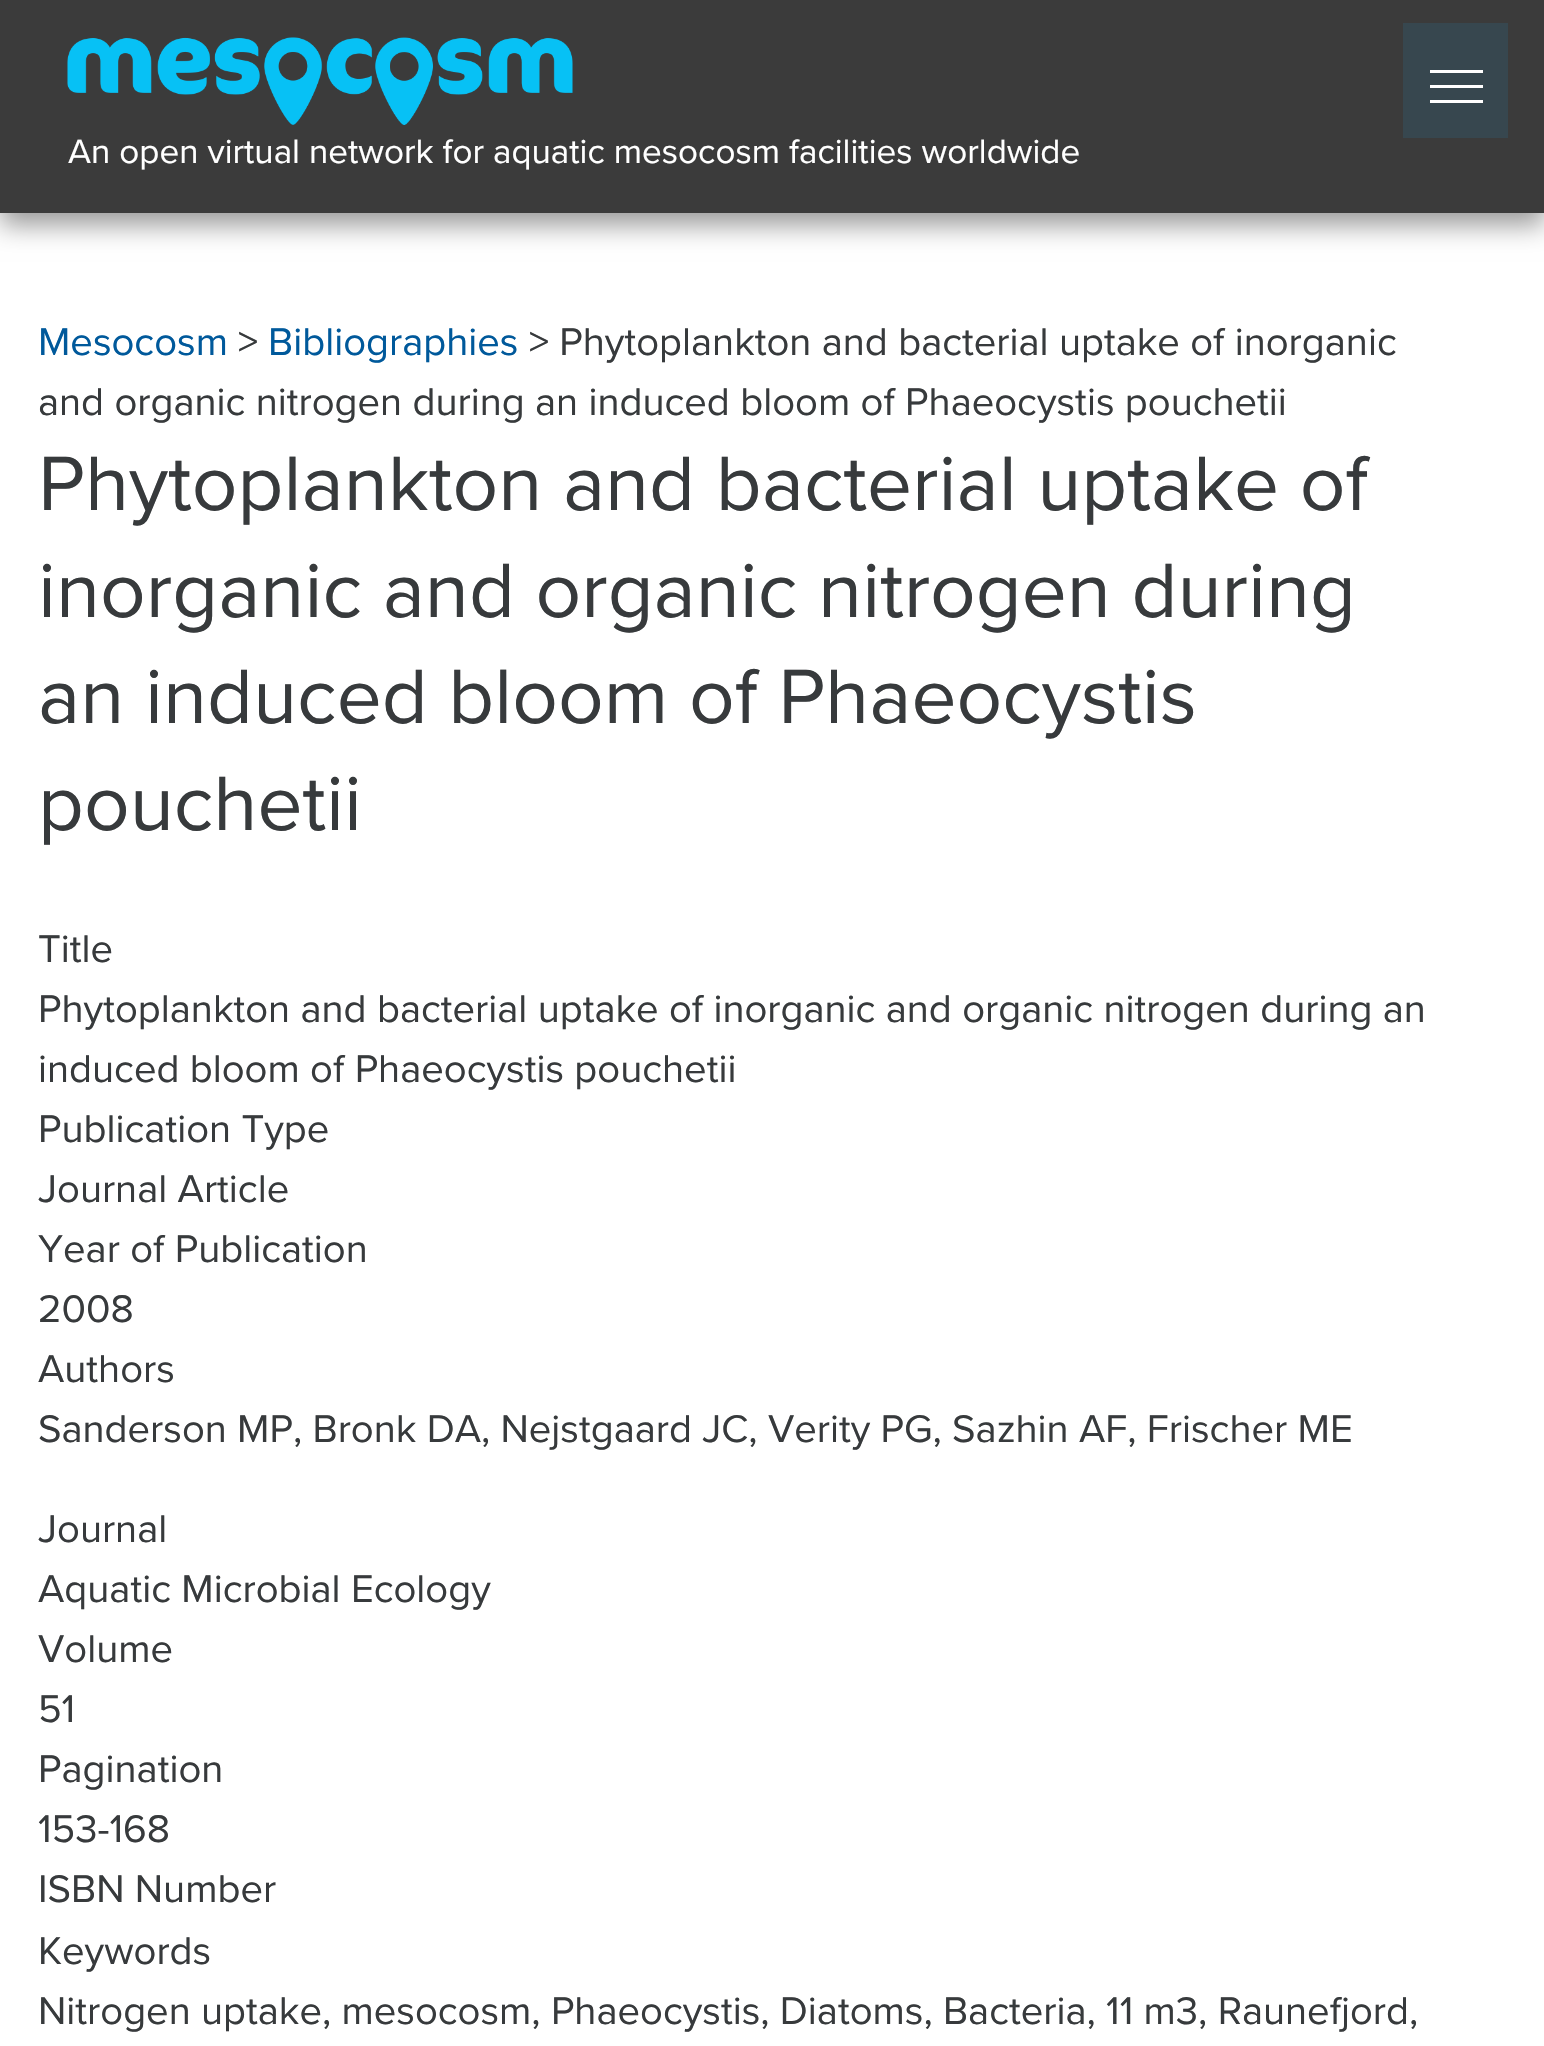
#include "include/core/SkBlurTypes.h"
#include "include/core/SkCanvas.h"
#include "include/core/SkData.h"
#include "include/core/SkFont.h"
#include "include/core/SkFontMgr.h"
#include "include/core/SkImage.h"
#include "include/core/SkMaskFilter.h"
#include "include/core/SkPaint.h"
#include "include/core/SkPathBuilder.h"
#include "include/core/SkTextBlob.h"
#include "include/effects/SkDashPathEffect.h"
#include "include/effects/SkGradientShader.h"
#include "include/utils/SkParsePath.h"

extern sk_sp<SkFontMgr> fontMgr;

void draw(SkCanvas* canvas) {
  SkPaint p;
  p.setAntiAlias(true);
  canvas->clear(SK_ColorWHITE);
  p.setColor(SkColorSetARGB(102, 0, 1, 1));
  p.setMaskFilter(SkMaskFilter::MakeBlur(kNormal_SkBlurStyle, 12.5f));
  canvas->drawRect(SkRect::MakeLTRB(0, 13, 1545, 225), p);
  p.setMaskFilter(nullptr);
  p.setColor(SkColorSetRGB(59, 59, 59));
  canvas->drawRect(SkRect::MakeLTRB(0, 0, 1544, 213), p);
  p.setColor(SkColorSetRGB(55, 71, 79));
  canvas->drawRect(SkRect::MakeLTRB(1403, 23, 1508, 138), p);
  p.setColor(SK_ColorWHITE);
  canvas->drawRect(SkRect::MakeLTRB(1430, 70, 1483, 73), p);
  canvas->drawRect(SkRect::MakeLTRB(1430, 85, 1483, 88), p);
  canvas->drawRect(SkRect::MakeLTRB(1430, 100, 1483, 103), p);
  canvas->drawImageRect(SkImages::DeferredFromEncodedData(SkData::MakeFromFileName("images/1.png")), SkRect::MakeLTRB(67, 37, 573, 125), SkSamplingOptions());
  SkFont font1(fontMgr->matchFamilyStyle("Proxima Nova", SkFontStyle::Normal()), 35);
  font1.setSubpixel(true);
  canvas->drawString("An open virtual network for aquatic mesocosm facilities worldwide", 68, 163, font1, p);
  SkFont font2(fontMgr->matchFamilyStyle("Proxima Nova", SkFontStyle::Normal()), 40);
  font2.setSubpixel(true);
  p.setColor(SkColorSetRGB(0, 89, 155));
  canvas->drawString("Mesocosm", 38, 355, font2, p);
  p.setColor(SkColorSetRGB(55, 58, 60));
  canvas->drawString(">", 238, 355, font2, p);
  p.setColor(SkColorSetRGB(0, 89, 155));
  canvas->drawString("Bibliographies", 268, 355, font2, p);
  p.setColor(SkColorSetRGB(55, 58, 60));
  canvas->drawString("> Phytoplankton and bacterial uptake of inorganic", 529, 355, font2, p);
  canvas->drawString("and organic nitrogen during an induced bloom of Phaeocystis pouchetii", 38, 415, font2, p);
  SkFont font3(fontMgr->matchFamilyStyle("Proxima Nova", SkFontStyle::Normal()), 80);
  font3.setSubpixel(true);
  canvas->drawString("Phytoplankton and bacterial uptake of", 38, 510, font3, p);
  canvas->drawString("inorganic and organic nitrogen during", 38, 617, font3, p);
  canvas->drawString("an induced bloom of Phaeocystis", 38, 723, font3, p);
  canvas->drawString("pouchetii", 38, 830, font3, p);
  canvas->drawString("Title", 38, 962, font2, p);
  canvas->drawString("Phytoplankton and bacterial uptake of inorganic and organic nitrogen during an", 38, 1022, font2, p);
  canvas->drawString("induced bloom of Phaeocystis pouchetii", 38, 1082, font2, p);
  canvas->drawString("Publication Type", 38, 1142, font2, p);
  canvas->drawString("Journal Article", 38, 1202, font2, p);
  canvas->drawString("Year of Publication", 38, 1262, font2, p);
  canvas->drawString("2008", 38, 1322, font2, p);
  canvas->drawString("Authors", 38, 1382, font2, p);
  canvas->drawString("Sanderson MP, Bronk DA, Nejstgaard JC, Verity PG, Sazhin AF, Frischer ME", 38, 1442, font2, p);
  canvas->drawString("Journal", 38, 1542, font2, p);
  canvas->drawString("Aquatic Microbial Ecology", 38, 1602, font2, p);
  canvas->drawString("Volume", 38, 1662, font2, p);
  canvas->drawString("51", 38, 1722, font2, p);
  canvas->drawString("Pagination", 38, 1782, font2, p);
  canvas->drawString("153-168", 38, 1842, font2, p);
  canvas->drawString("ISBN Number", 38, 1902, font2, p);
  canvas->drawString("Keywords", 38, 1964, font2, p);
  canvas->drawString("Nitrogen uptake, mesocosm, Phaeocystis, Diatoms, Bacteria, 11 m3, Raunefjord,", 38, 2024, font2, p);
}
